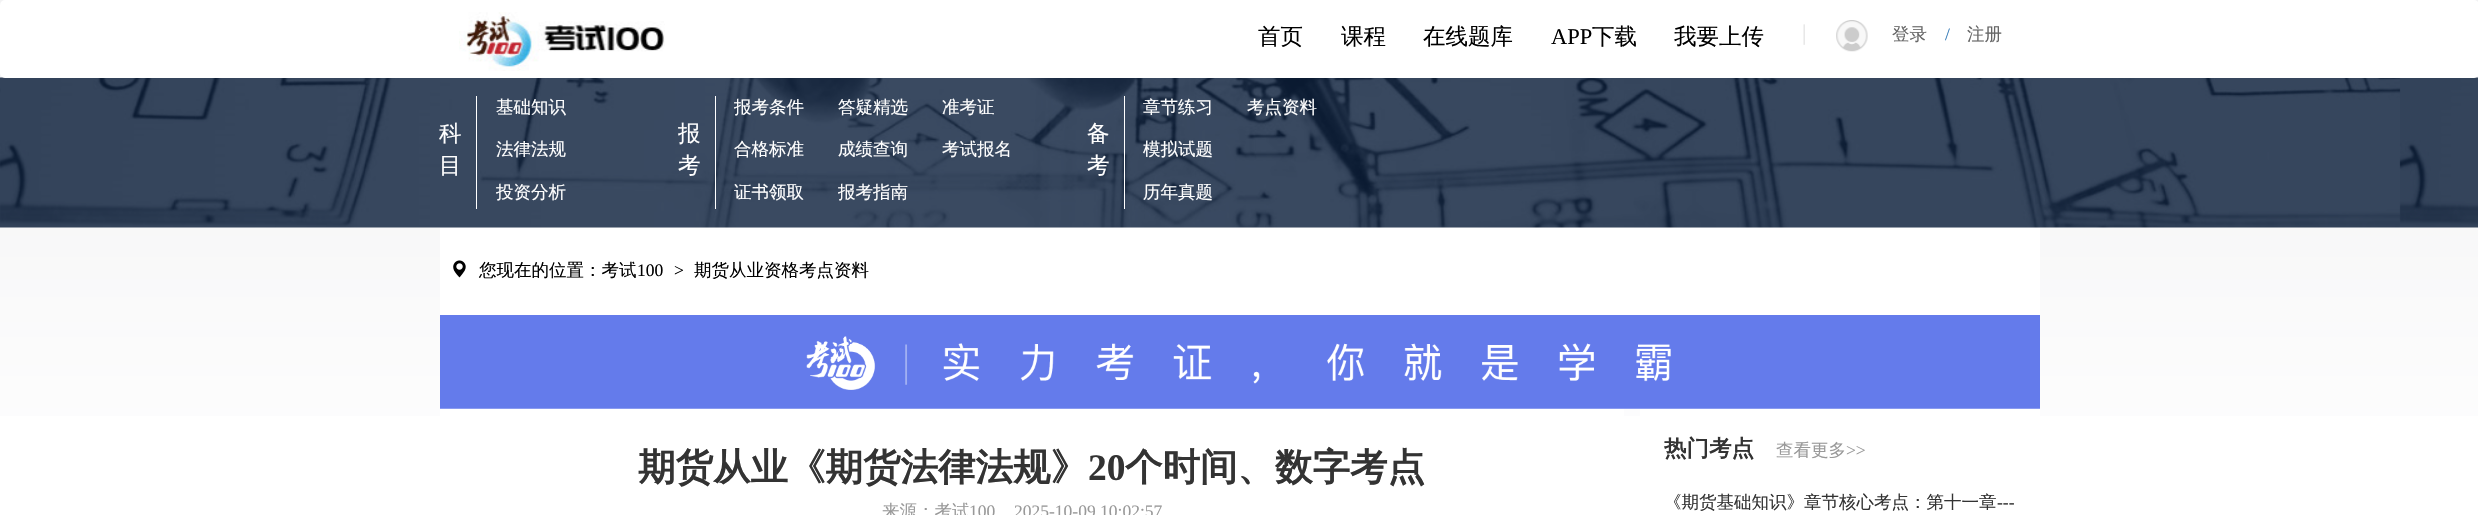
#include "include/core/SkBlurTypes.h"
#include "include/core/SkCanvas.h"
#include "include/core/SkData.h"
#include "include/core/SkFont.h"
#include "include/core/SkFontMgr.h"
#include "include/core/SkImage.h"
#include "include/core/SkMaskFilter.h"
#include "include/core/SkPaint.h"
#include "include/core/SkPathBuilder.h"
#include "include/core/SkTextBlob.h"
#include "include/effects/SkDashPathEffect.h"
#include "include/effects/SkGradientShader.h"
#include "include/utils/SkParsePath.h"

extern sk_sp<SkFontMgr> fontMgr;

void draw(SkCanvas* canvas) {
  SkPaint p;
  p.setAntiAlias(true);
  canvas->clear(SK_ColorWHITE);
  {
    const SkColor colors[] = {SkColorSetRGB(242, 242, 243), SK_ColorWHITE};
    const float stops[] = {0, 1};
    const SkPoint ends[] = {{1239, 0}, {1239, 515}};
    p.setShader(SkGradientShader::MakeLinear(ends, colors, stops, 2, SkTileMode::kClamp));
    p.setAlpha(255);
  }
  canvas->drawRect(SkRect::MakeLTRB(0, 0, 2478, 416), p);
  canvas->drawImageRect(SkImages::DeferredFromEncodedData(SkData::MakeFromFileName("images/3.png")), SkRect::MakeLTRB(0, 77, 2478, 228), SkSamplingOptions());
  p.setShader(nullptr);
  p.setColor(SK_ColorWHITE);
  canvas->drawRoundRect(SkRect::MakeLTRB(0, 0, 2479, 78), 5, 5, p);
  canvas->drawImageRect(SkImages::DeferredFromEncodedData(SkData::MakeFromFileName("images/1.png")), SkRect::MakeLTRB(459, 12, 665, 71), SkSamplingOptions());
  canvas->drawImageRect(SkImages::DeferredFromEncodedData(SkData::MakeFromFileName("images/2.png")), SkRect::MakeLTRB(1836, 20, 1868, 52), SkSamplingOptions());
  canvas->drawRect(SkRect::MakeLTRB(476, 96, 477, 209), p);
  canvas->drawRect(SkRect::MakeLTRB(715, 96, 716, 209), p);
  canvas->drawRect(SkRect::MakeLTRB(1124, 96, 1125, 209), p);
  canvas->drawRect(SkRect::MakeLTRB(440, 228, 2040, 315), p);
  canvas->drawImageRect(SkImages::DeferredFromEncodedData(SkData::MakeFromFileName("images/4.png")), SkRect::MakeLTRB(453, 260, 466, 278), SkSamplingOptions());
  canvas->drawImageRect(SkImages::DeferredFromEncodedData(SkData::MakeFromFileName("images/5.png")), SkRect::MakeLTRB(440, 315, 2040, 409), SkSamplingOptions());
  canvas->drawRect(SkRect::MakeLTRB(440, 409, 1624, 416), p);
  canvas->drawRect(SkRect::MakeLTRB(1640, 409, 2040, 416), p);
  SkFont font1(fontMgr->matchFamilyStyle("WenQuanYi Zen Hei", SkFontStyle(500, SkFontStyle::kNormal_Width, SkFontStyle::kUpright_Slant)), 22.5f);
  font1.setSubpixel(true);
  p.setColor(SK_ColorBLACK);
  canvas->drawString("首页", 1258, 44, font1, p);
  canvas->drawString("课程", 1341, 44, font1, p);
  canvas->drawString("在线题库", 1423, 44, font1, p);
  SkFont font2(fontMgr->matchFamilyStyle("Liberation Serif", SkFontStyle::Normal()), 22.5f);
  font2.setSubpixel(true);
  canvas->drawString("APP", 1551, 44, font2, p);
  canvas->drawString("下载", 1592, 44, font1, p);
  canvas->drawString("我要上传", 1674, 44, font1, p);
  p.setColor(SkColorSetRGB(229, 229, 229));
  canvas->drawString("|", 1802, 40, font2, p);
  SkFont font3(fontMgr->matchFamilyStyle("WenQuanYi Zen Hei", SkFontStyle(500, SkFontStyle::kNormal_Width, SkFontStyle::kUpright_Slant)), 17.5f);
  font3.setSubpixel(true);
  p.setColor(SkColorSetRGB(102, 102, 102));
  canvas->drawString("登录", 1892, 40, font3, p);
  SkFont font4(fontMgr->matchFamilyStyle("Liberation Serif", SkFontStyle::Normal()), 17.5f);
  font4.setSubpixel(true);
  p.setColor(SkColorSetRGB(51, 122, 183));
  canvas->drawString("/", 1945, 40, font4, p);
  p.setColor(SkColorSetRGB(102, 102, 102));
  canvas->drawString("注册", 1967, 40, font3, p);
  p.setColor(SK_ColorWHITE);
  canvas->drawString("科", 439, 141, font1, p);
  canvas->drawString("目", 439, 173, font1, p);
  canvas->drawString("基础知识", 496, 113, font3, p);
  canvas->drawString("法律法规", 496, 155, font3, p);
  canvas->drawString("投资分析", 496, 198, font3, p);
  canvas->drawString("报", 678, 141, font1, p);
  canvas->drawString("考", 678, 173, font1, p);
  canvas->drawString("报考条件", 734, 113, font3, p);
  canvas->drawString("合格标准", 734, 155, font3, p);
  canvas->drawString("证书领取", 734, 198, font3, p);
  canvas->drawString("答疑精选", 838, 113, font3, p);
  canvas->drawString("成绩查询", 838, 155, font3, p);
  canvas->drawString("报考指南", 838, 198, font3, p);
  canvas->drawString("准考证", 942, 113, font3, p);
  canvas->drawString("考试报名", 942, 155, font3, p);
  canvas->drawString("章节练习", 1143, 113, font3, p);
  canvas->drawString("模拟试题", 1143, 155, font3, p);
  canvas->drawString("历年真题", 1143, 198, font3, p);
  canvas->drawString("考点资料", 1247, 113, font3, p);
  canvas->drawString("备", 1087, 141, font1, p);
  canvas->drawString("考", 1087, 173, font1, p);
  p.setColor(SK_ColorBLACK);
  canvas->drawString("您现在的位置：考试", 479, 276, font3, p);
  canvas->drawString("100", 637, 276, font4, p);
  canvas->drawString(">", 674, 276, font4, p);
  canvas->drawString("期货从业资格考点资料", 694, 276, font3, p);
  SkFont font5(fontMgr->matchFamilyStyle("WenQuanYi Zen Hei", SkFontStyle::Bold()), 37.5f);
  font5.setSubpixel(true);
  p.setColor(SkColorSetRGB(51, 51, 51));
  canvas->drawString("期货从业《期货法律法规》", 638, 480, font5, p);
  SkFont font6(fontMgr->matchFamilyStyle("Liberation Serif", SkFontStyle::Bold()), 37.5f);
  font6.setSubpixel(true);
  canvas->drawString("20", 1088, 480, font6, p);
  canvas->drawString("个时间、数字考点", 1125, 480, font5, p);
  p.setColor(SkColorSetRGB(153, 153, 153));
  canvas->drawString("来源：考试", 882, 517, font3, p);
  canvas->drawString("100", 969, 517, font4, p);
  canvas->drawString("2025-10-09 10:02:57", 1014, 517, font4, p);
  SkFont font7(fontMgr->matchFamilyStyle("WenQuanYi Zen Hei", SkFontStyle::Bold()), 22.5f);
  font7.setSubpixel(true);
  p.setColor(SkColorSetRGB(51, 51, 51));
  canvas->drawString("热门考点", 1664, 456, font7, p);
  p.setColor(SkColorSetRGB(153, 153, 153));
  canvas->drawString("查看更多", 1776, 456, font3, p);
  canvas->drawString(">>", 1846, 456, font4, p);
  p.setColor(SkColorSetRGB(51, 51, 51));
  canvas->drawString("《期货基础知识》章节核心考点：第十一章", 1664, 508, font3, p);
  canvas->drawString("---", 1997, 508, font4, p);
}
